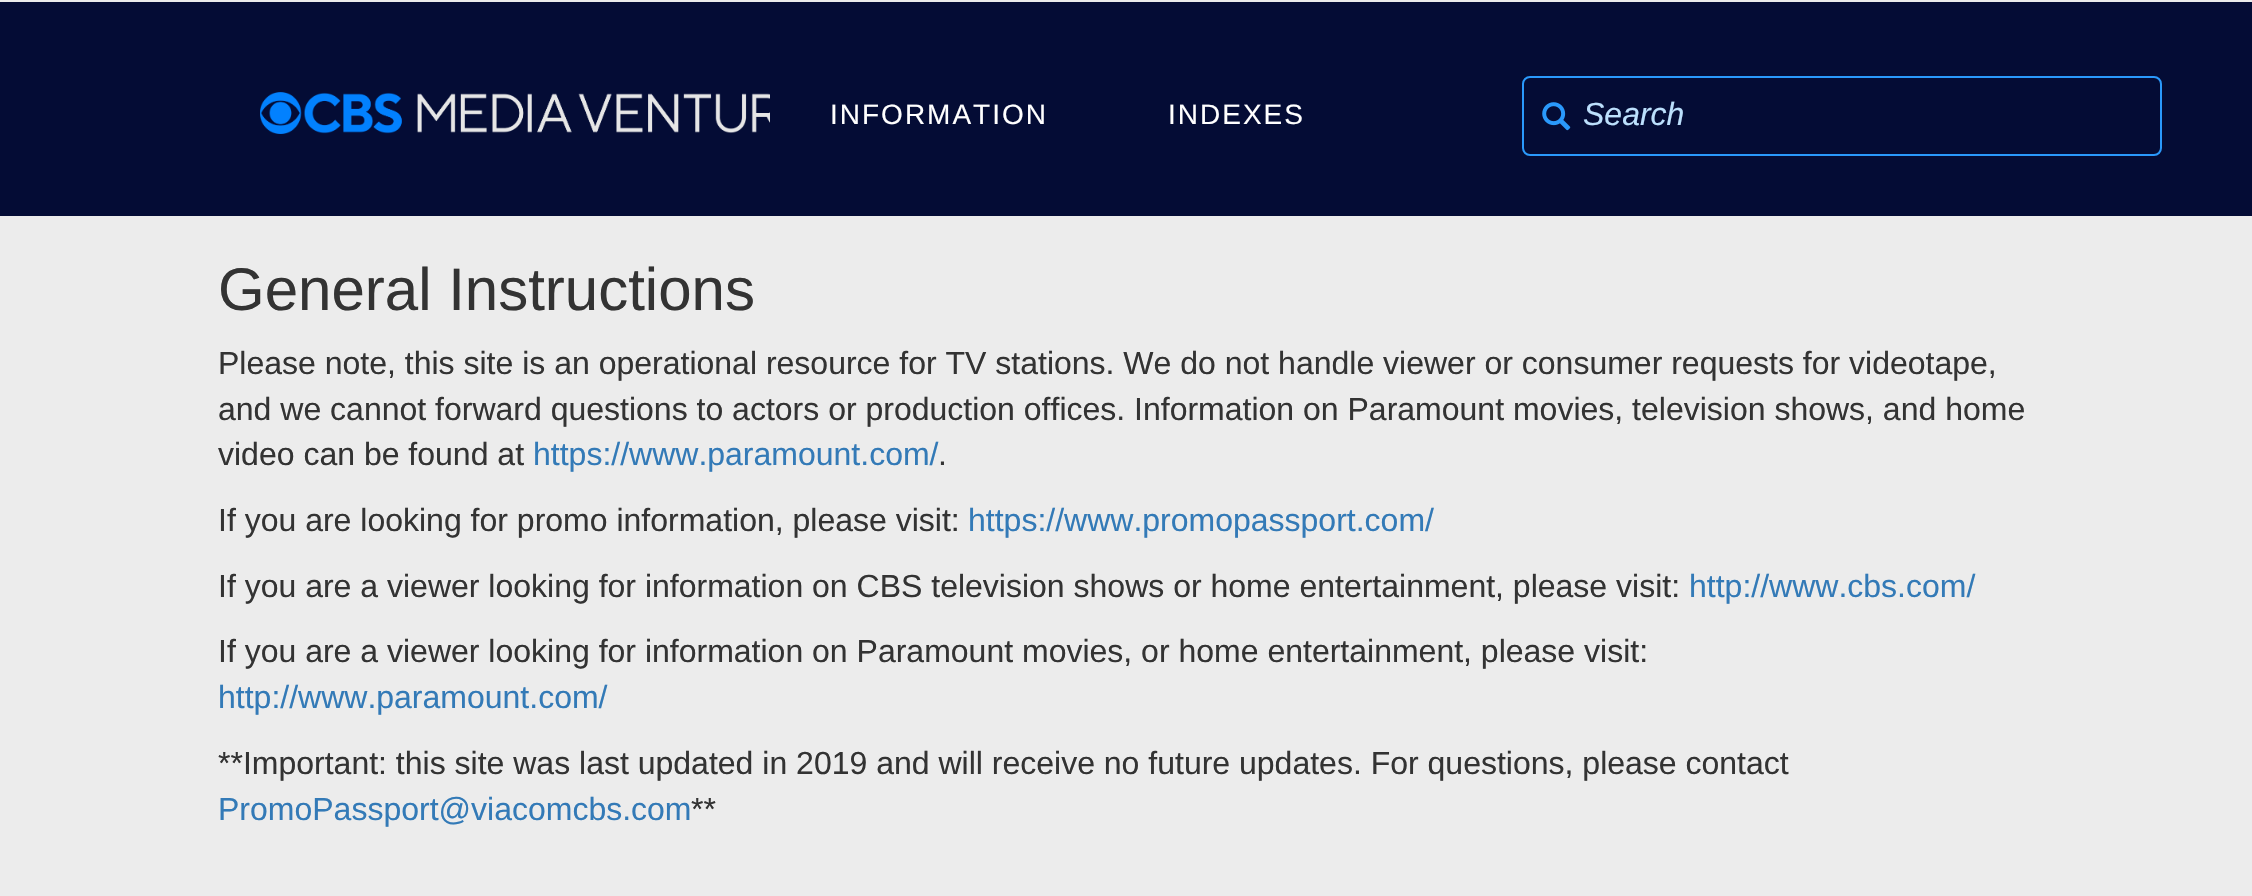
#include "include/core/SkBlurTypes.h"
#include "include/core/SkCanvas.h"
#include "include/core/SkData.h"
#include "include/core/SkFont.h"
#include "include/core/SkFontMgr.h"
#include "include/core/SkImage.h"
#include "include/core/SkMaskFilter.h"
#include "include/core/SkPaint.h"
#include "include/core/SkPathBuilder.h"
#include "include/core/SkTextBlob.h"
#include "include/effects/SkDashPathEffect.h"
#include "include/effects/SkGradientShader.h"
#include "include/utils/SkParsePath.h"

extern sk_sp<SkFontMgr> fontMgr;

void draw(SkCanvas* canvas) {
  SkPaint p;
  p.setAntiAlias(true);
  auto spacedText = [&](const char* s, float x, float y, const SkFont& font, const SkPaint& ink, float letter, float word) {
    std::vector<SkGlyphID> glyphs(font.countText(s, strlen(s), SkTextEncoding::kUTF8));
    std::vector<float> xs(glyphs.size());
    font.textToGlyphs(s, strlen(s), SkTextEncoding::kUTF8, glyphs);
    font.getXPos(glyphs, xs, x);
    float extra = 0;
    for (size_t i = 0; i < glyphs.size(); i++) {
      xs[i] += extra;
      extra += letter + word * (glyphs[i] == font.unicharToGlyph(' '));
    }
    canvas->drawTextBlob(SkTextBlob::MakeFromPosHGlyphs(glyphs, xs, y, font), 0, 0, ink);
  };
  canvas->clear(SkColorSetRGB(236, 236, 236));
  p.setColor(SkColorSetRGB(4, 12, 53));
  canvas->drawRect(SkRect::MakeLTRB(0, 2, 2252, 216), p);
  canvas->drawImageRect(SkImages::DeferredFromEncodedData(SkData::MakeFromFileName("images/1.png")), SkRect::MakeLTRB(260, 92, 770, 134), SkSamplingOptions());
  p.setStyle(SkPaint::kStroke_Style);
  p.setStrokeWidth(2);
  p.setColor(SkColorSetRGB(42, 153, 251));
  canvas->drawRoundRect(SkRect::MakeLTRB(1523, 77, 2161, 155), 7, 7, p);
  canvas->drawImageRect(SkImages::DeferredFromEncodedData(SkData::MakeFromFileName("images/2.png")), SkRect::MakeLTRB(1542, 102, 1571, 131), SkSamplingOptions());
  SkFont font1(fontMgr->matchFamilyStyle("Liberation Sans", SkFontStyle::Normal()), 28);
  font1.setSubpixel(true);
  p.setStyle(SkPaint::kFill_Style);
  p.setColor(SK_ColorWHITE);
  spacedText("INFORMATION", 830, 124, font1, p, 2, 0);
  spacedText("INDEXES", 1168, 124, font1, p, 2, 0);
  SkFont font2(fontMgr->matchFamilyStyle("Liberation Sans", SkFontStyle::Italic()), 32);
  font2.setSubpixel(true);
  p.setColor(SkColorSetRGB(188, 224, 253));
  canvas->drawString("Search", 1583, 125, font2, p);
  SkFont font3(fontMgr->matchFamilyStyle("Liberation Sans", SkFontStyle::Normal()), 60);
  font3.setSubpixel(true);
  p.setColor(SkColorSetRGB(51, 51, 51));
  canvas->drawString("General Instructions", 218, 310, font3, p);
  SkFont font4(fontMgr->matchFamilyStyle("Liberation Sans", SkFontStyle::Normal()), 32);
  font4.setSubpixel(true);
  canvas->drawString("Please note, this site is an operational resource for TV stations. We do not handle viewer or consumer requests for videotape,", 218, 374, font4, p);
  canvas->drawString("and we cannot forward questions to actors or production offices. Information on Paramount movies, television shows, and home", 218, 420, font4, p);
  canvas->drawString("video can be found at", 218, 465, font4, p);
  p.setColor(SkColorSetRGB(51, 122, 183));
  canvas->drawString("https://www.paramount.com/", 533, 465, font4, p);
  p.setColor(SkColorSetRGB(51, 51, 51));
  canvas->drawString(".", 938, 465, font4, p);
  canvas->drawString("If you are looking for promo information, please visit:", 218, 531, font4, p);
  p.setColor(SkColorSetRGB(51, 122, 183));
  canvas->drawString("https://www.promopassport.com/", 968, 531, font4, p);
  p.setColor(SkColorSetRGB(51, 51, 51));
  canvas->drawString("If you are a viewer looking for information on CBS television shows or home entertainment, please visit:", 218, 597, font4, p);
  p.setColor(SkColorSetRGB(51, 122, 183));
  canvas->drawString("http://www.cbs.com/", 1689, 597, font4, p);
  p.setColor(SkColorSetRGB(51, 51, 51));
  canvas->drawString("If you are a viewer looking for information on Paramount movies, or home entertainment, please visit:", 218, 662, font4, p);
  p.setColor(SkColorSetRGB(51, 122, 183));
  canvas->drawString("http://www.paramount.com/", 218, 708, font4, p);
  p.setColor(SkColorSetRGB(51, 51, 51));
  canvas->drawString("**Important: this site was last updated in 2019 and will receive no future updates. For questions, please contact", 218, 774, font4, p);
  p.setColor(SkColorSetRGB(51, 122, 183));
  canvas->drawString("PromoPassport@viacomcbs.com", 218, 820, font4, p);
  p.setColor(SkColorSetRGB(51, 51, 51));
  canvas->drawString("**", 691, 820, font4, p);
}
